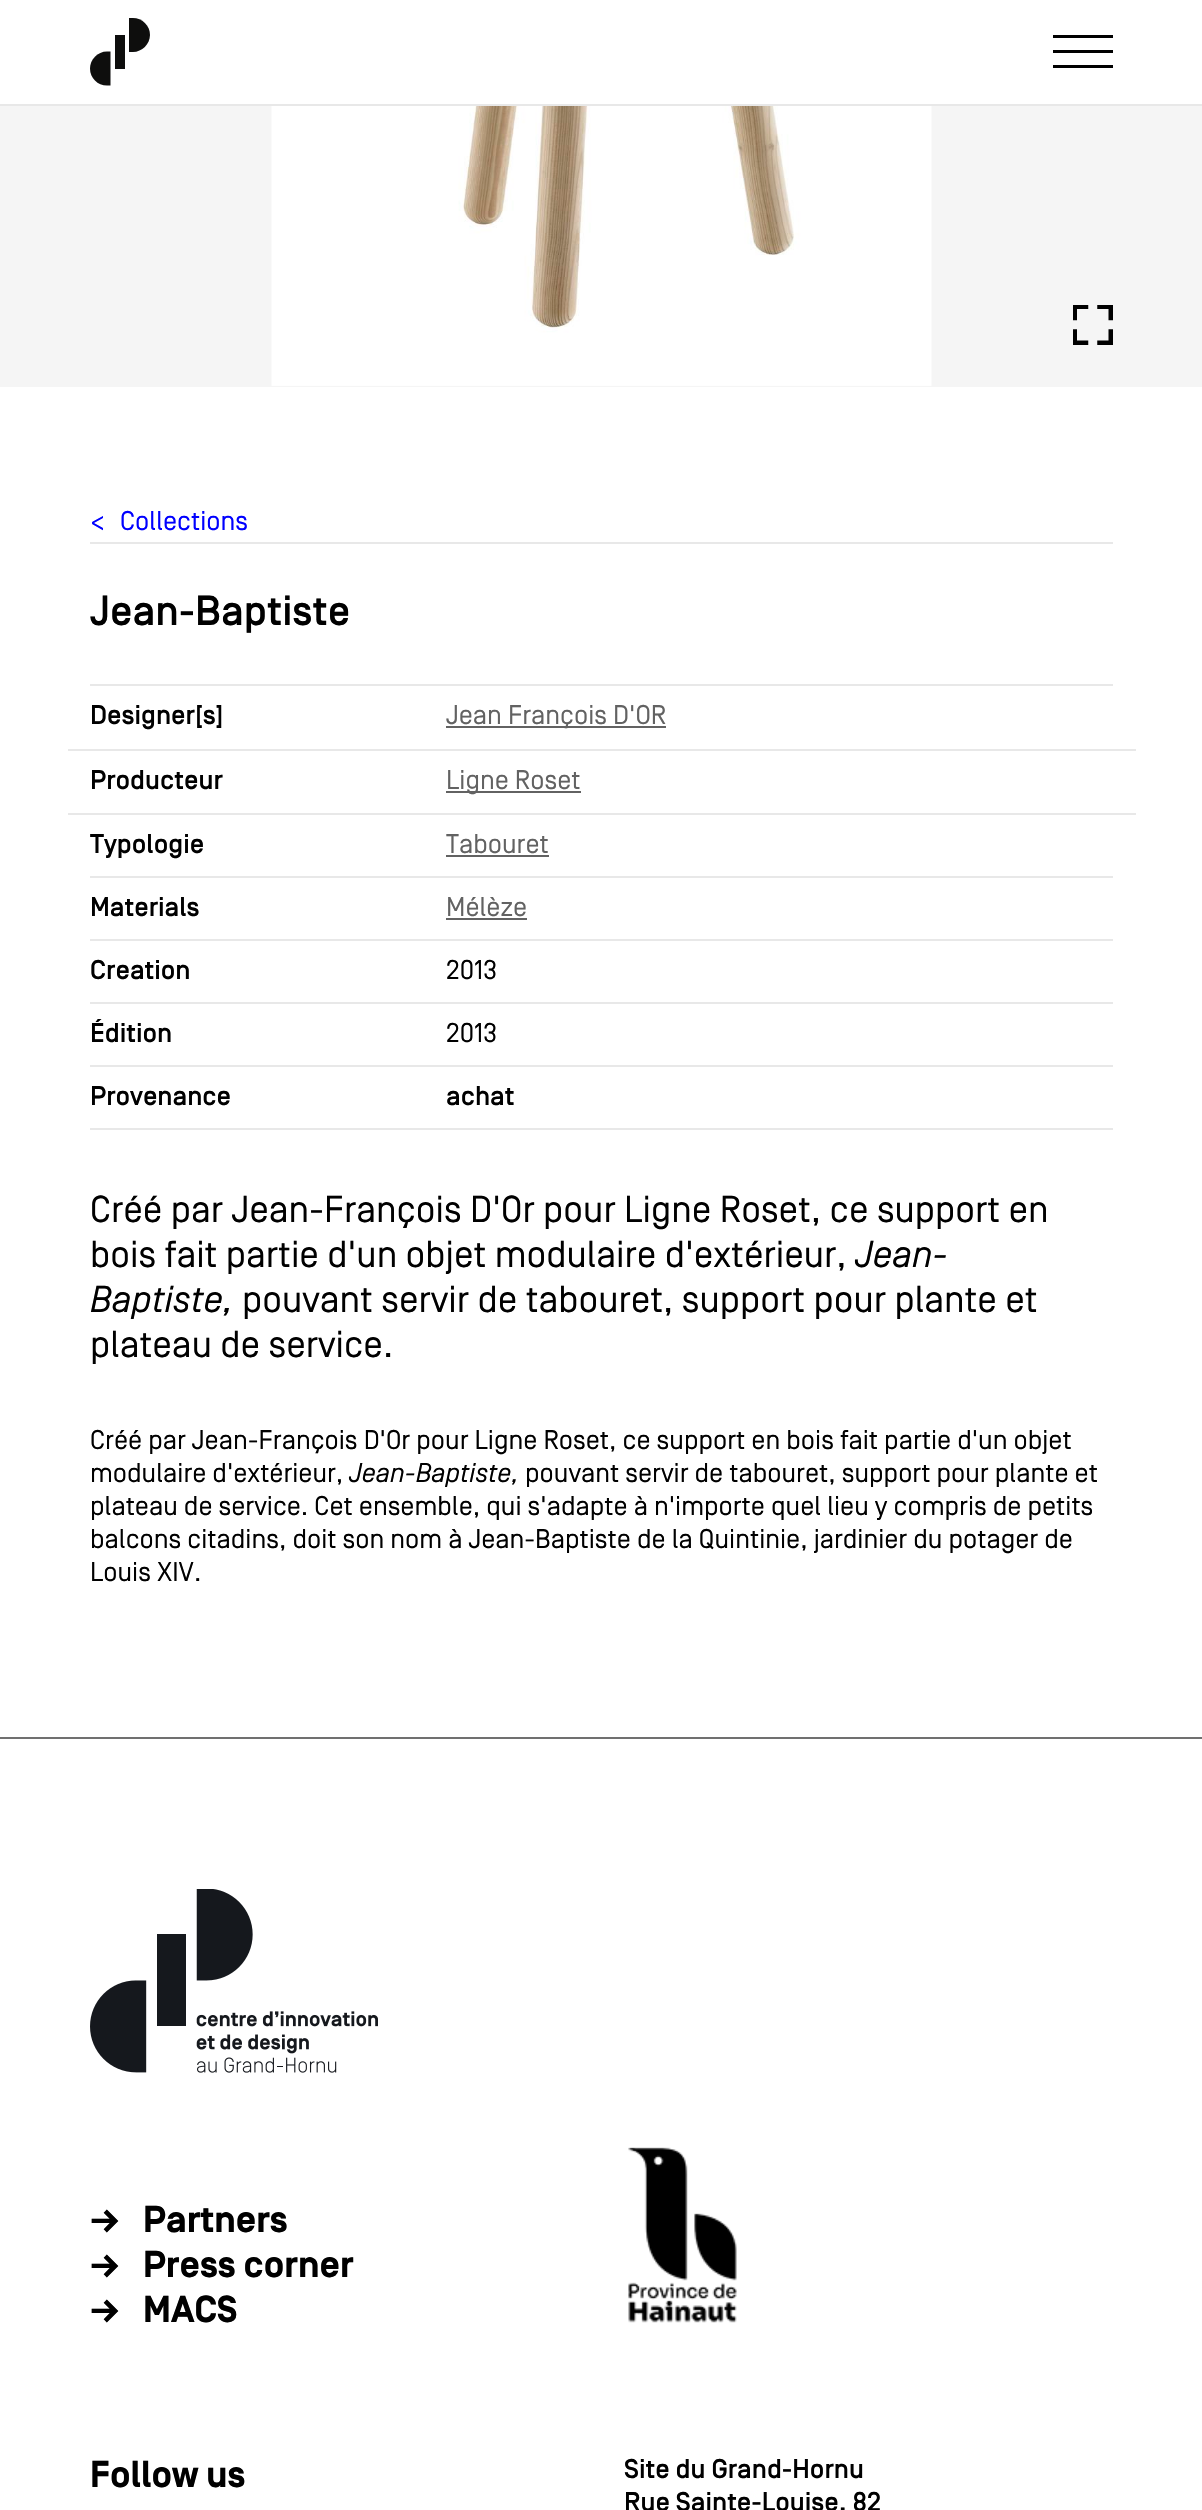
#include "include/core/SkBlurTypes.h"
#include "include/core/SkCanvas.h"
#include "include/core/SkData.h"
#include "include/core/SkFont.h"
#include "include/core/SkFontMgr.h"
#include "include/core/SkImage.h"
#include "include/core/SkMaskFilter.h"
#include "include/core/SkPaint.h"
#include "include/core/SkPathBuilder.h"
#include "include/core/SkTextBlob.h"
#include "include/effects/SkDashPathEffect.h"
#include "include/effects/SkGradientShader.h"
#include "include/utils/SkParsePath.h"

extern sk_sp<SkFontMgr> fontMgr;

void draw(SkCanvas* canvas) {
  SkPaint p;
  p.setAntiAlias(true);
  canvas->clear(SK_ColorWHITE);
  p.setColor(SkColorSetRGB(232, 232, 232));
  canvas->drawRect(SkRect::MakeLTRB(0, 104, 1202, 106), p);
  p.setColor(SkColorSetRGB(14, 14, 13));
  canvas->drawRect(SkRect::MakeLTRB(115, 35, 125, 69), p);
  canvas->drawPath(SkPathBuilder().moveTo(110.5f, 51.5f).lineTo(107, 51.5f).cubicTo(97.5f, 51.5f, 90, 59.5f, 90, 68.5f).cubicTo(90, 78, 97.5f, 85.5f, 107, 85.5f).lineTo(110.5f, 85.5f).close().detach(), p);
  canvas->drawPath(SkPathBuilder().moveTo(129, 52).lineTo(133, 52).cubicTo(142, 52, 150, 44, 150, 35).cubicTo(150, 25.5f, 142, 18, 133, 18).lineTo(129, 18).close().detach(), p);
  p.setColor(SK_ColorBLACK);
  canvas->drawRect(SkRect::MakeLTRB(1053, 50, 1113, 53), p);
  canvas->drawRect(SkRect::MakeLTRB(1053, 35, 1113, 38), p);
  canvas->drawRect(SkRect::MakeLTRB(1053, 65, 1113, 68), p);
  p.setColor(SkColorSetRGB(245, 245, 245));
  canvas->drawRect(SkRect::MakeLTRB(0, 106, 1202, 387), p);
  canvas->drawImageRect(SkImages::DeferredFromEncodedData(SkData::MakeFromFileName("images/1.png")), SkRect::MakeLTRB(271, 106, 932, 386), SkSamplingOptions());
  canvas->drawImageRect(SkImages::DeferredFromEncodedData(SkData::MakeFromFileName("images/2.png")), SkRect::MakeLTRB(1073, 305, 1113, 345), SkSamplingOptions());
  p.setColor(SkColorSetRGB(232, 232, 232));
  canvas->drawRect(SkRect::MakeLTRB(90, 542, 1113, 544), p);
  canvas->drawRect(SkRect::MakeLTRB(90, 684, 1113, 686), p);
  canvas->drawRect(SkRect::MakeLTRB(68, 749, 1136, 751), p);
  p.setColor(SkColorSetRGB(98, 98, 98));
  canvas->drawRect(SkRect::MakeLTRB(446, 726, 666, 728), p);
  p.setColor(SkColorSetRGB(232, 232, 232));
  canvas->drawRect(SkRect::MakeLTRB(68, 813, 1136, 815), p);
  p.setColor(SkColorSetRGB(98, 98, 98));
  canvas->drawRect(SkRect::MakeLTRB(446, 791, 581, 793), p);
  canvas->drawRect(SkRect::MakeLTRB(446, 855, 549, 857), p);
  p.setColor(SkColorSetRGB(232, 232, 232));
  canvas->drawRect(SkRect::MakeLTRB(90, 876, 1113, 878), p);
  p.setColor(SkColorSetRGB(98, 98, 98));
  canvas->drawRect(SkRect::MakeLTRB(446, 918, 527, 920), p);
  p.setColor(SkColorSetRGB(232, 232, 232));
  canvas->drawRect(SkRect::MakeLTRB(90, 939, 1113, 941), p);
  canvas->drawRect(SkRect::MakeLTRB(90, 1002, 1113, 1004), p);
  canvas->drawRect(SkRect::MakeLTRB(90, 1065, 1113, 1067), p);
  canvas->drawRect(SkRect::MakeLTRB(90, 1128, 1113, 1130), p);
  p.setColor(SkColorSetRGB(112, 112, 112));
  canvas->drawRect(SkRect::MakeLTRB(0, 1737, 1202, 1739), p);
  canvas->drawImageRect(SkImages::DeferredFromEncodedData(SkData::MakeFromFileName("images/3.png")), SkRect::MakeLTRB(90, 1889, 378, 2073), SkSamplingOptions());
  canvas->drawImageRect(SkImages::DeferredFromEncodedData(SkData::MakeFromFileName("images/4.png")), SkRect::MakeLTRB(628, 2147, 737, 2323), SkSamplingOptions());
  SkFont font1(fontMgr->matchFamilyStyle("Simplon", SkFontStyle::Normal()), 27);
  font1.setSubpixel(true);
  p.setColor(SkColorSetRGB(0, 0, 255));
  canvas->drawString("<", 90, 530, font1, p);
  canvas->drawString("Collections", 120, 530, font1, p);
  SkFont font2(fontMgr->matchFamilyStyle("Simplon", SkFontStyle(500, SkFontStyle::kNormal_Width, SkFontStyle::kUpright_Slant)), 42);
  font2.setSubpixel(true);
  p.setColor(SK_ColorBLACK);
  canvas->drawString("Jean-Baptiste", 90, 625, font2, p);
  SkFont font3(fontMgr->matchFamilyStyle("Simplon", SkFontStyle(500, SkFontStyle::kNormal_Width, SkFontStyle::kUpright_Slant)), 27);
  font3.setSubpixel(true);
  canvas->drawString("Designer[s]", 90, 724, font3, p);
  p.setColor(SkColorSetRGB(98, 98, 98));
  canvas->drawString("Jean François D'OR", 446, 724, font1, p);
  p.setColor(SK_ColorBLACK);
  canvas->drawString("Producteur", 90, 789, font3, p);
  p.setColor(SkColorSetRGB(98, 98, 98));
  canvas->drawString("Ligne Roset", 446, 789, font1, p);
  p.setColor(SK_ColorBLACK);
  canvas->drawString("Typologie", 90, 853, font3, p);
  p.setColor(SkColorSetRGB(98, 98, 98));
  canvas->drawString("Tabouret", 446, 853, font1, p);
  p.setColor(SK_ColorBLACK);
  canvas->drawString("Materials", 90, 916, font3, p);
  p.setColor(SkColorSetRGB(98, 98, 98));
  canvas->drawString("Mélèze", 446, 916, font1, p);
  p.setColor(SK_ColorBLACK);
  canvas->drawString("Creation", 90, 979, font3, p);
  canvas->drawString("2013", 446, 979, font1, p);
  canvas->drawString("Édition", 90, 1042, font3, p);
  canvas->drawString("2013", 446, 1042, font1, p);
  canvas->drawString("Provenance", 90, 1105, font3, p);
  canvas->drawString("achat", 446, 1105, font3, p);
  SkFont font4(fontMgr->matchFamilyStyle("Simplon", SkFontStyle::Normal()), 37.5f);
  font4.setSubpixel(true);
  canvas->drawString("Créé par Jean-François D'Or pour Ligne Roset, ce support en", 90, 1222, font4, p);
  canvas->drawString("bois fait partie d'un objet modulaire d'extérieur,", 90, 1267, font4, p);
  SkFont font5(fontMgr->matchFamilyStyle("Simplon", SkFontStyle::Italic()), 37.5f);
  font5.setSubpixel(true);
  canvas->drawString("Jean-", 855, 1267, font5, p);
  canvas->drawString("Baptiste,", 90, 1312, font5, p);
  canvas->drawString("pouvant servir de tabouret, support pour plante et", 242, 1312, font4, p);
  canvas->drawString("plateau de service.", 90, 1357, font4, p);
  canvas->drawString("Créé par Jean-François D'Or pour Ligne Roset, ce support en bois fait partie d'un objet", 90, 1449, font1, p);
  canvas->drawString("modulaire d'extérieur,", 90, 1482, font1, p);
  SkFont font6(fontMgr->matchFamilyStyle("Simplon", SkFontStyle::Italic()), 27);
  font6.setSubpixel(true);
  canvas->drawString("Jean-Baptiste,", 349, 1482, font6, p);
  canvas->drawString("pouvant servir de tabouret, support pour plante et", 525, 1482, font1, p);
  canvas->drawString("plateau de service. Cet ensemble, qui s'adapte à n'importe quel lieu y compris de petits", 90, 1515, font1, p);
  canvas->drawString("balcons citadins, doit son nom à Jean-Baptiste de la Quintinie, jardinier du potager de", 90, 1548, font1, p);
  canvas->drawString("Louis XIV.", 90, 1581, font1, p);
  SkFont font7(fontMgr->matchFamilyStyle("Simplon", SkFontStyle::Bold()), 37.5f);
  font7.setSubpixel(true);
  canvas->drawString("→", 90, 2232, font7, p);
  canvas->drawString("Partners", 143, 2232, font7, p);
  canvas->drawString("→", 90, 2277, font7, p);
  canvas->drawString("Press corner", 143, 2277, font7, p);
  canvas->drawString("→", 90, 2322, font7, p);
  canvas->drawString("MACS", 143, 2322, font7, p);
  canvas->drawString("Follow us", 90, 2487, font7, p);
  canvas->drawString("Site du Grand-Hornu", 624, 2478, font3, p);
  canvas->drawString("Rue Sainte-Louise, 82", 624, 2511, font3, p);
}
